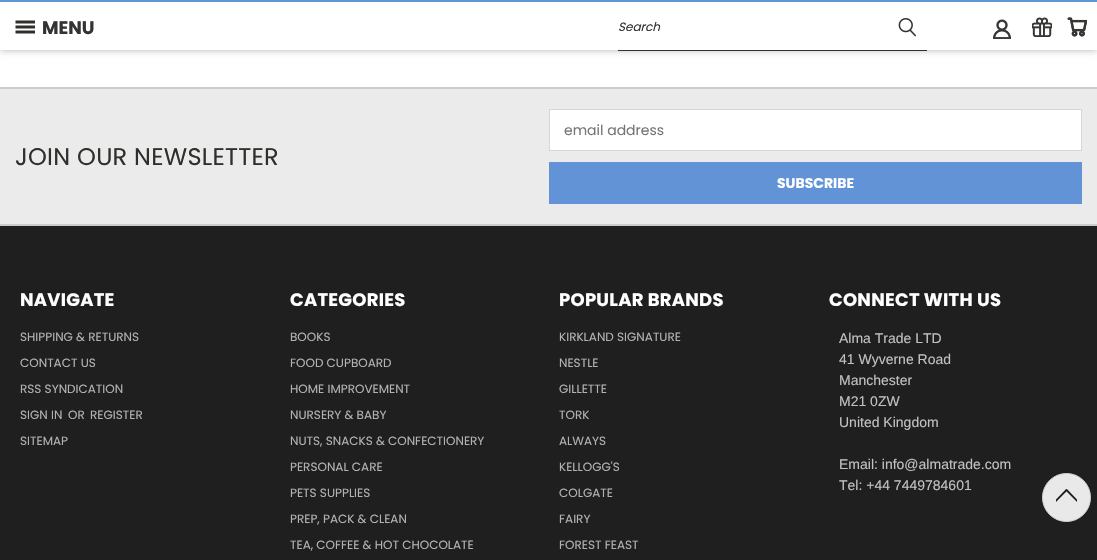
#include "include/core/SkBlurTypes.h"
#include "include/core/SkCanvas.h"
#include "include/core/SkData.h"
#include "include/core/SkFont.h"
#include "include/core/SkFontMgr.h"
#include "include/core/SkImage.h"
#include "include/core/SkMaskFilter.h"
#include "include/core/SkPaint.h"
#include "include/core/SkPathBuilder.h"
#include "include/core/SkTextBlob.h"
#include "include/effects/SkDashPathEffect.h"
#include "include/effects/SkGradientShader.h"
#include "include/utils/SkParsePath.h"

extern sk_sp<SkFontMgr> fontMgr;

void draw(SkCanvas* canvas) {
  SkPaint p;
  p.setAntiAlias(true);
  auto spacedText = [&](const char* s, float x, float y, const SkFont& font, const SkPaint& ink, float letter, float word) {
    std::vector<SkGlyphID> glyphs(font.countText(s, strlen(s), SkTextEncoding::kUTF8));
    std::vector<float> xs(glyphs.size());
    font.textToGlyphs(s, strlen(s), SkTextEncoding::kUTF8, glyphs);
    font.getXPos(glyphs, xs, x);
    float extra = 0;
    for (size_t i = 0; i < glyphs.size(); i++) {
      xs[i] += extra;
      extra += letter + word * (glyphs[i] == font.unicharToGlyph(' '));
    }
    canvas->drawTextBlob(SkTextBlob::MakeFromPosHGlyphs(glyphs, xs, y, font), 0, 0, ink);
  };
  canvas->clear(SK_ColorWHITE);
  p.setColor(SkColorSetARGB(77, 0, 0, 0));
  p.setMaskFilter(SkMaskFilter::MakeBlur(kNormal_SkBlurStyle, 3.5f));
  canvas->drawRect(SkRect::MakeLTRB(0, 0, 1097, 50), p);
  p.setMaskFilter(nullptr);
  p.setColor(SK_ColorWHITE);
  canvas->drawRect(SkRect::MakeLTRB(0, 2, 1097, 50), p);
  p.setColor(SkColorSetRGB(98, 147, 214));
  canvas->drawRect(SkRect::MakeLTRB(0, 0, 1097, 2), p);
  canvas->drawImageRect(SkImages::DeferredFromEncodedData(SkData::MakeFromFileName("images/1.png")), SkRect::MakeLTRB(15, 20, 35, 34), SkSamplingOptions());
  p.setColor(SkColorSetRGB(51, 51, 51));
  canvas->drawRect(SkRect::MakeLTRB(618, 50, 927, 51), p);
  canvas->drawImageRect(SkImages::DeferredFromEncodedData(SkData::MakeFromFileName("images/2.png")), SkRect::MakeLTRB(898, 18, 916, 37), SkSamplingOptions());
  canvas->drawImageRect(SkImages::DeferredFromEncodedData(SkData::MakeFromFileName("images/3.png")), SkRect::MakeLTRB(993, 19, 1011, 39), SkSamplingOptions());
  canvas->drawImageRect(SkImages::DeferredFromEncodedData(SkData::MakeFromFileName("images/4.png")), SkRect::MakeLTRB(1032, 17, 1052, 37), SkSamplingOptions());
  canvas->drawImageRect(SkImages::DeferredFromEncodedData(SkData::MakeFromFileName("images/5.png")), SkRect::MakeLTRB(1067, 17, 1087, 37), SkSamplingOptions());
  p.setColor(SkColorSetRGB(235, 235, 235));
  canvas->drawRect(SkRect::MakeLTRB(0, 89, 1097, 224), p);
  p.setColor(SkColorSetRGB(205, 204, 204));
  canvas->drawRect(SkRect::MakeLTRB(0, 87, 1097, 89), p);
  p.setColor(SK_ColorWHITE);
  canvas->drawRect(SkRect::MakeLTRB(549.5f, 109.5f, 1081.5f, 150.5f), p);
  p.setStyle(SkPaint::kStroke_Style);
  p.setStrokeWidth(1);
  p.setColor(SkColorSetRGB(215, 215, 215));
  canvas->drawRect(SkRect::MakeLTRB(549.5f, 109.5f, 1081.5f, 150.5f), p);
  p.setStyle(SkPaint::kFill_Style);
  p.setColor(SkColorSetRGB(98, 147, 214));
  canvas->drawRect(SkRect::MakeLTRB(549, 162, 1082, 204), p);
  p.setColor(SkColorSetRGB(31, 31, 31));
  canvas->drawRect(SkRect::MakeLTRB(0, 226, 1097, 560), p);
  p.setColor(SkColorSetRGB(205, 204, 204));
  canvas->drawRect(SkRect::MakeLTRB(0, 224, 1097, 226), p);
  p.setColor(SkColorSetRGB(233, 233, 233));
  canvas->drawCircle(1066.5f, 497.5f, 24, p);
  p.setStyle(SkPaint::kStroke_Style);
  p.setColor(SkColorSetRGB(215, 215, 215));
  canvas->drawCircle(1066.5f, 497.5f, 24, p);
  canvas->save();
  canvas->clipPath(SkPathBuilder().moveTo(1077, 488.5f).lineTo(1077, 509.5f).lineTo(1056, 509.5f).lineTo(1056, 488.5f).close().detach(), true);
  p.setStrokeWidth(1.8f);
  p.setStrokeCap(SkPaint::kRound_Cap);
  p.setStrokeJoin(SkPaint::kRound_Join);
  p.setColor(SkColorSetRGB(31, 31, 31));
  canvas->drawPath(SkPathBuilder().moveTo(1084, 508).lineTo(1066.5f, 490).lineTo(1049, 508).detach(), p);
  canvas->restore();
  SkFont font1(fontMgr->matchFamilyStyle("Poppins", SkFontStyle::Bold()), 18);
  font1.setSubpixel(true);
  p.setStyle(SkPaint::kFill_Style);
  p.setColor(SkColorSetRGB(51, 51, 51));
  canvas->drawString("MENU", 42, 34, font1, p);
  SkFont font2(fontMgr->matchFamilyStyle("Poppins", SkFontStyle::Italic()), 12);
  font2.setSubpixel(true);
  canvas->drawString("Search", 618, 31, font2, p);
  SkFont font3(fontMgr->matchFamilyStyle("Poppins", SkFontStyle::Normal()), 24);
  font3.setSubpixel(true);
  p.setColor(SkColorSetRGB(47, 47, 43));
  spacedText("JOIN OUR NEWSLETTER", 15, 165, font3, p, 0.25f, 0);
  SkFont font4(fontMgr->matchFamilyStyle("Poppins", SkFontStyle::Normal()), 14);
  font4.setSubpixel(true);
  p.setColor(SkColorSetRGB(117, 117, 117));
  canvas->drawString("email address", 564, 135, font4, p);
  SkFont font5(fontMgr->matchFamilyStyle("Poppins", SkFontStyle::Bold()), 14);
  font5.setSubpixel(true);
  p.setColor(SK_ColorWHITE);
  canvas->drawString("SUBSCRIBE", 777, 188, font5, p);
  spacedText("NAVIGATE", 20, 306, font1, p, 0.25f, 0);
  SkFont font6(fontMgr->matchFamilyStyle("Poppins", SkFontStyle::Normal()), 12);
  font6.setSubpixel(true);
  p.setColor(SkColorSetRGB(178, 178, 178));
  canvas->drawString("SHIPPING & RETURNS", 20, 341, font6, p);
  canvas->drawString("CONTACT US", 20, 367, font6, p);
  canvas->drawString("RSS SYNDICATION", 20, 393, font6, p);
  canvas->drawString("SIGN IN", 20, 419, font6, p);
  canvas->drawString("OR", 68, 419, font6, p);
  canvas->drawString("REGISTER", 90, 419, font6, p);
  canvas->drawString("SITEMAP", 20, 445, font6, p);
  p.setColor(SK_ColorWHITE);
  spacedText("CATEGORIES", 290, 306, font1, p, 0.25f, 0);
  p.setColor(SkColorSetRGB(178, 178, 178));
  canvas->drawString("BOOKS", 290, 341, font6, p);
  canvas->drawString("FOOD CUPBOARD", 290, 367, font6, p);
  canvas->drawString("HOME IMPROVEMENT", 290, 393, font6, p);
  canvas->drawString("NURSERY & BABY", 290, 419, font6, p);
  canvas->drawString("NUTS, SNACKS & CONFECTIONERY", 290, 445, font6, p);
  canvas->drawString("PERSONAL CARE", 290, 471, font6, p);
  canvas->drawString("PETS SUPPLIES", 290, 497, font6, p);
  canvas->drawString("PREP, PACK & CLEAN", 290, 523, font6, p);
  canvas->drawString("TEA, COFFEE & HOT CHOCOLATE", 290, 549, font6, p);
  p.setColor(SK_ColorWHITE);
  spacedText("POPULAR BRANDS", 559, 306, font1, p, 0.25f, 0);
  p.setColor(SkColorSetRGB(178, 178, 178));
  canvas->drawString("KIRKLAND SIGNATURE", 559, 341, font6, p);
  canvas->drawString("NESTLE", 559, 367, font6, p);
  canvas->drawString("GILLETTE", 559, 393, font6, p);
  canvas->drawString("TORK", 559, 419, font6, p);
  canvas->drawString("ALWAYS", 559, 445, font6, p);
  canvas->drawString("KELLOGG'S", 559, 471, font6, p);
  canvas->drawString("COLGATE", 559, 497, font6, p);
  canvas->drawString("FAIRY", 559, 523, font6, p);
  canvas->drawString("FOREST FEAST", 559, 549, font6, p);
  p.setColor(SK_ColorWHITE);
  spacedText("CONNECT WITH US", 829, 306, font1, p, 0.25f, 0);
  SkFont font7(fontMgr->matchFamilyStyle("Liberation Sans", SkFontStyle::Normal()), 14);
  font7.setSubpixel(true);
  p.setColor(SkColorSetRGB(193, 193, 193));
  canvas->drawString("Alma Trade LTD", 839, 343, font7, p);
  canvas->drawString("41 Wyverne Road", 839, 364, font7, p);
  canvas->drawString("Manchester", 839, 385, font7, p);
  canvas->drawString("M21 0ZW", 839, 406, font7, p);
  canvas->drawString("United Kingdom", 839, 427, font7, p);
  canvas->drawString("Email: info@almatrade.com", 839, 469, font7, p);
  canvas->drawString("Tel: +44 7449784601", 839, 490, font7, p);
}
